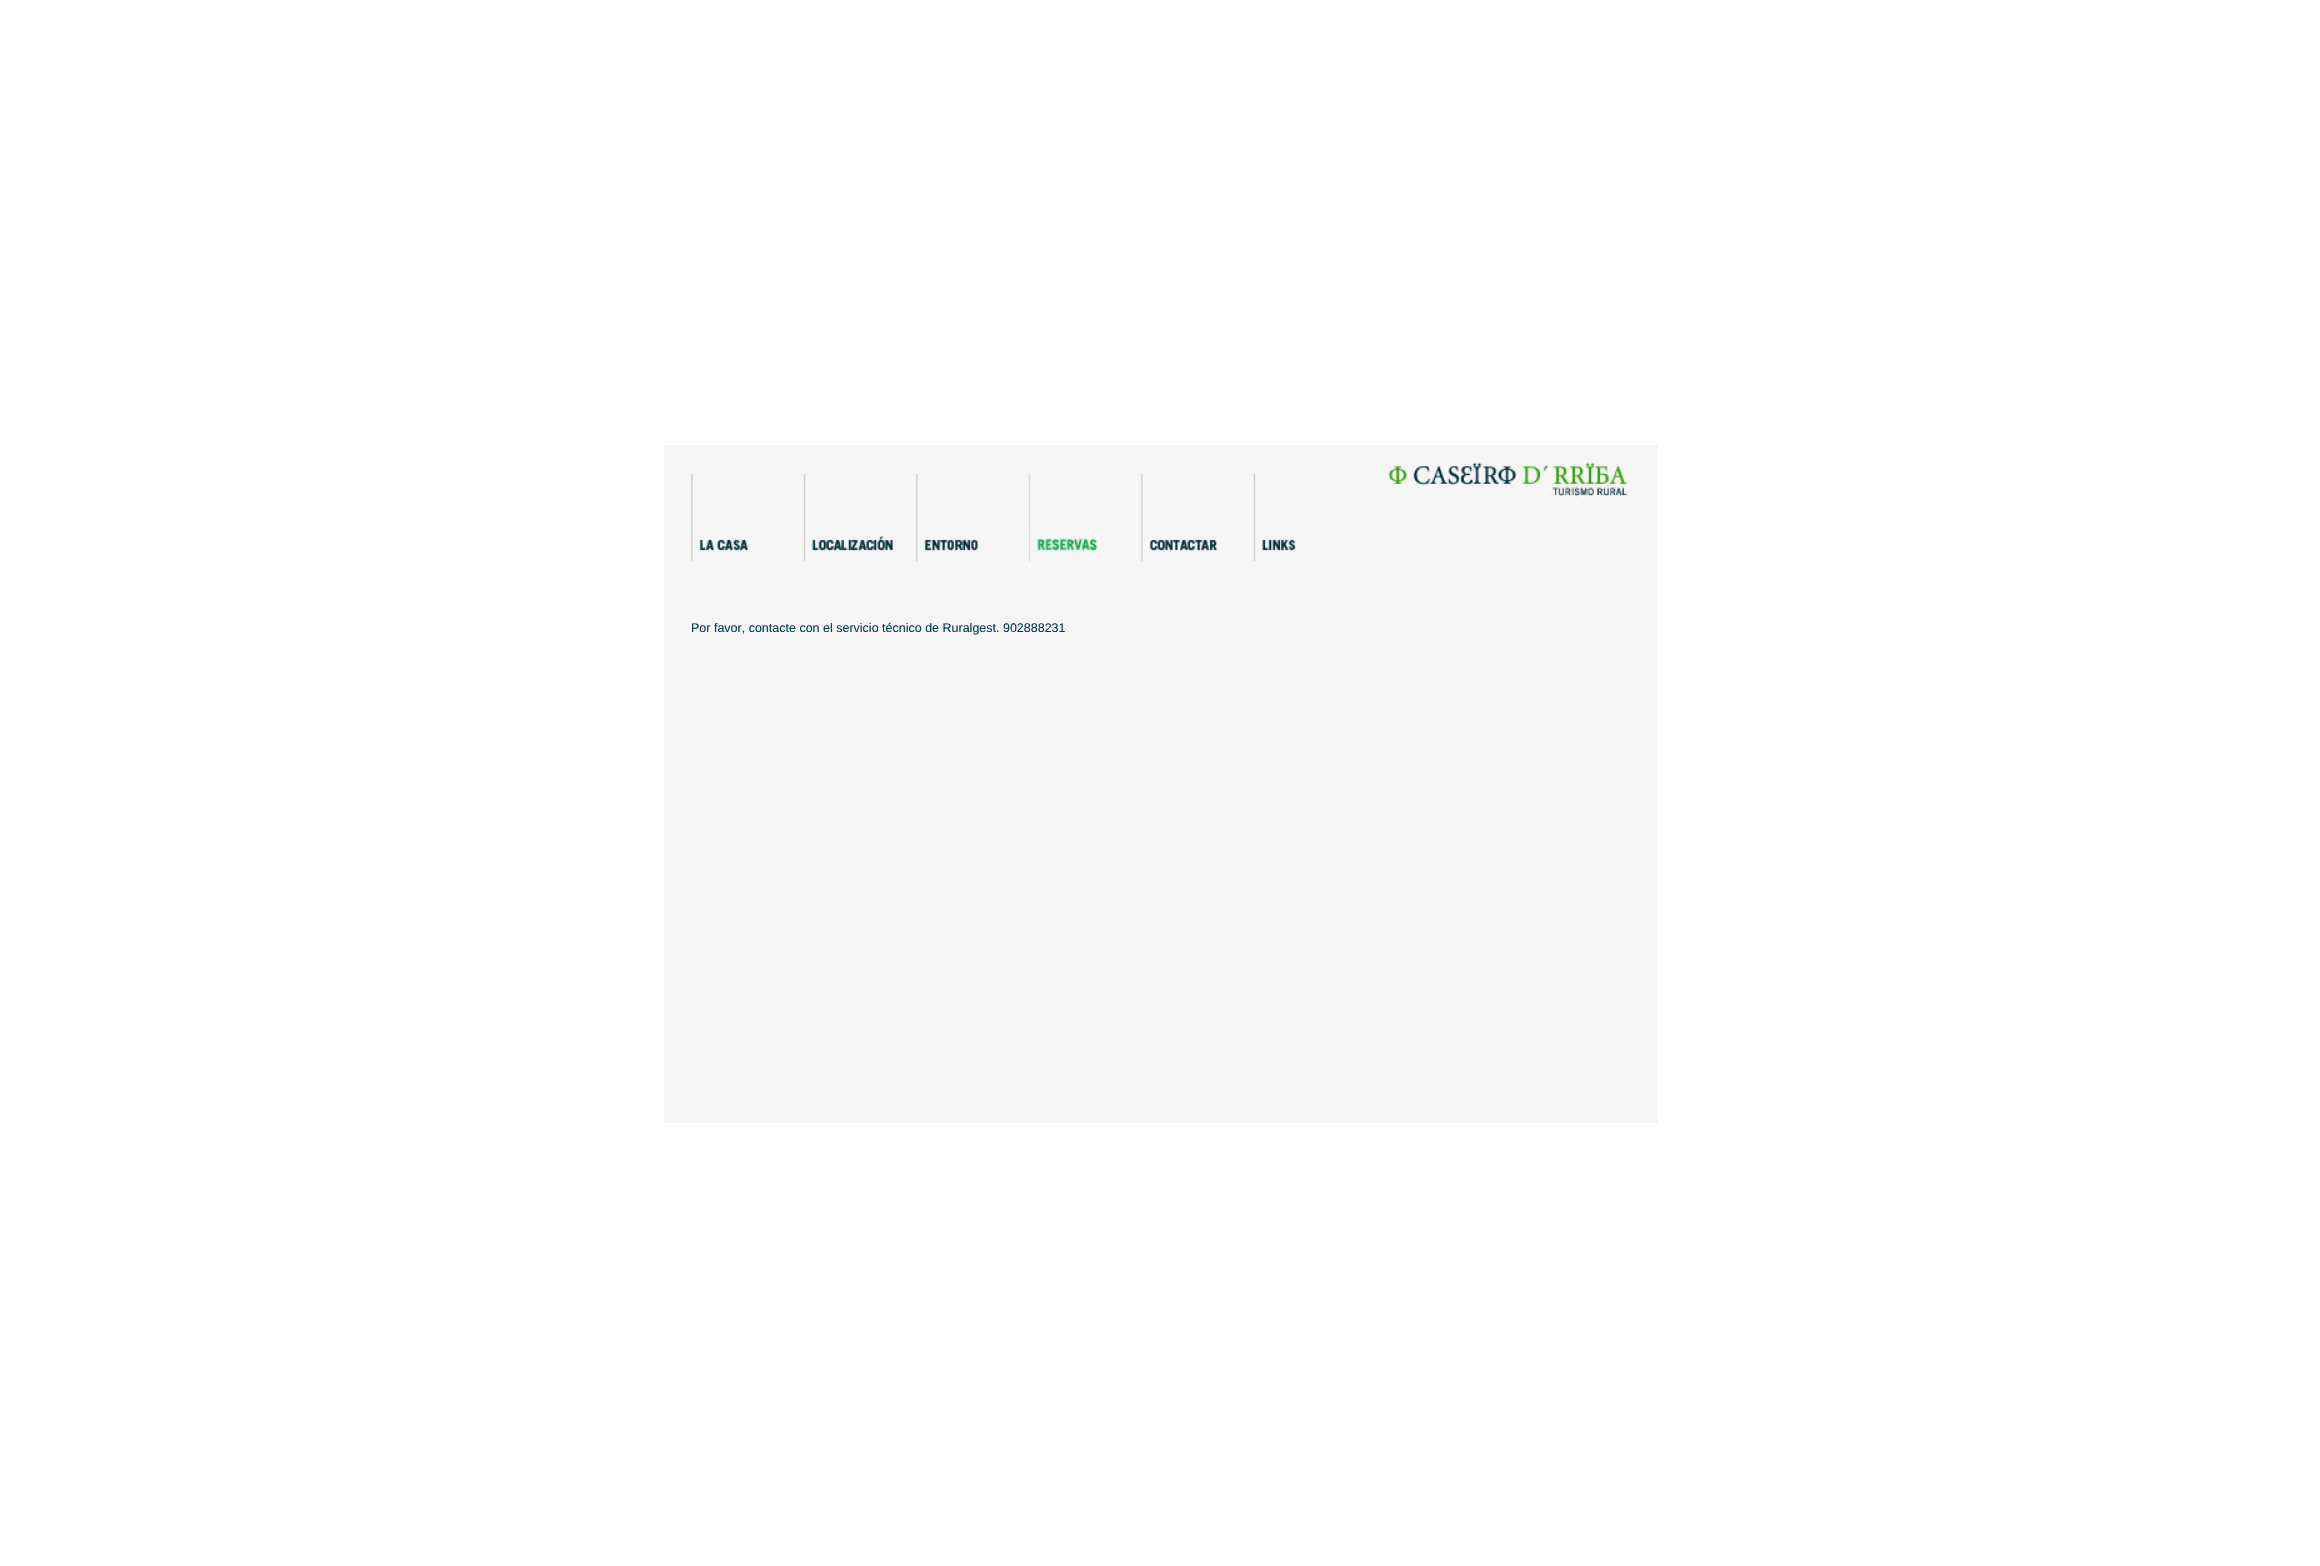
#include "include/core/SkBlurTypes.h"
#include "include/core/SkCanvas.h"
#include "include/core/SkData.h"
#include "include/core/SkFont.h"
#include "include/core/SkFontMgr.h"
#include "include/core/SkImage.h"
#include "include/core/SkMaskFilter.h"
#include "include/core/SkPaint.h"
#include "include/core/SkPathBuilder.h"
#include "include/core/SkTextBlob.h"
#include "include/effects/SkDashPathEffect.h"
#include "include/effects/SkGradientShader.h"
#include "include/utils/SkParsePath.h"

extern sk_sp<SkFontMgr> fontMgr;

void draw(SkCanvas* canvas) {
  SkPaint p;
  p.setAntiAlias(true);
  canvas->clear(SK_ColorWHITE);
  p.setColor(SkColorSetRGB(246, 246, 246));
  canvas->drawRect(SkRect::MakeLTRB(664, 445, 1658, 1123), p);
  canvas->drawImageRect(SkImages::DeferredFromEncodedData(SkData::MakeFromFileName("images/1.png")), SkRect::MakeLTRB(691, 473, 748, 562), SkSamplingOptions());
  canvas->drawImageRect(SkImages::DeferredFromEncodedData(SkData::MakeFromFileName("images/2.png")), SkRect::MakeLTRB(803, 473, 893, 562), SkSamplingOptions());
  canvas->drawImageRect(SkImages::DeferredFromEncodedData(SkData::MakeFromFileName("images/3.png")), SkRect::MakeLTRB(916, 473, 978, 562), SkSamplingOptions());
  canvas->drawImageRect(SkImages::DeferredFromEncodedData(SkData::MakeFromFileName("images/4.png")), SkRect::MakeLTRB(1028, 473, 1098, 562), SkSamplingOptions());
  canvas->drawImageRect(SkImages::DeferredFromEncodedData(SkData::MakeFromFileName("images/5.png")), SkRect::MakeLTRB(1141, 473, 1218, 562), SkSamplingOptions());
  canvas->drawImageRect(SkImages::DeferredFromEncodedData(SkData::MakeFromFileName("images/6.png")), SkRect::MakeLTRB(1253, 473, 1296, 562), SkSamplingOptions());
  canvas->drawImageRect(SkImages::DeferredFromEncodedData(SkData::MakeFromFileName("images/7.png")), SkRect::MakeLTRB(1388, 462, 1628, 497), SkSamplingOptions());
  SkFont font1(fontMgr->matchFamilyStyle("Liberation Sans", SkFontStyle::Normal()), 12.5f);
  font1.setSubpixel(true);
  p.setColor(SkColorSetRGB(0, 62, 81));
  canvas->drawString("Por favor, contacte con el servicio técnico de Ruralgest. 902888231", 691, 632, font1, p);
}
